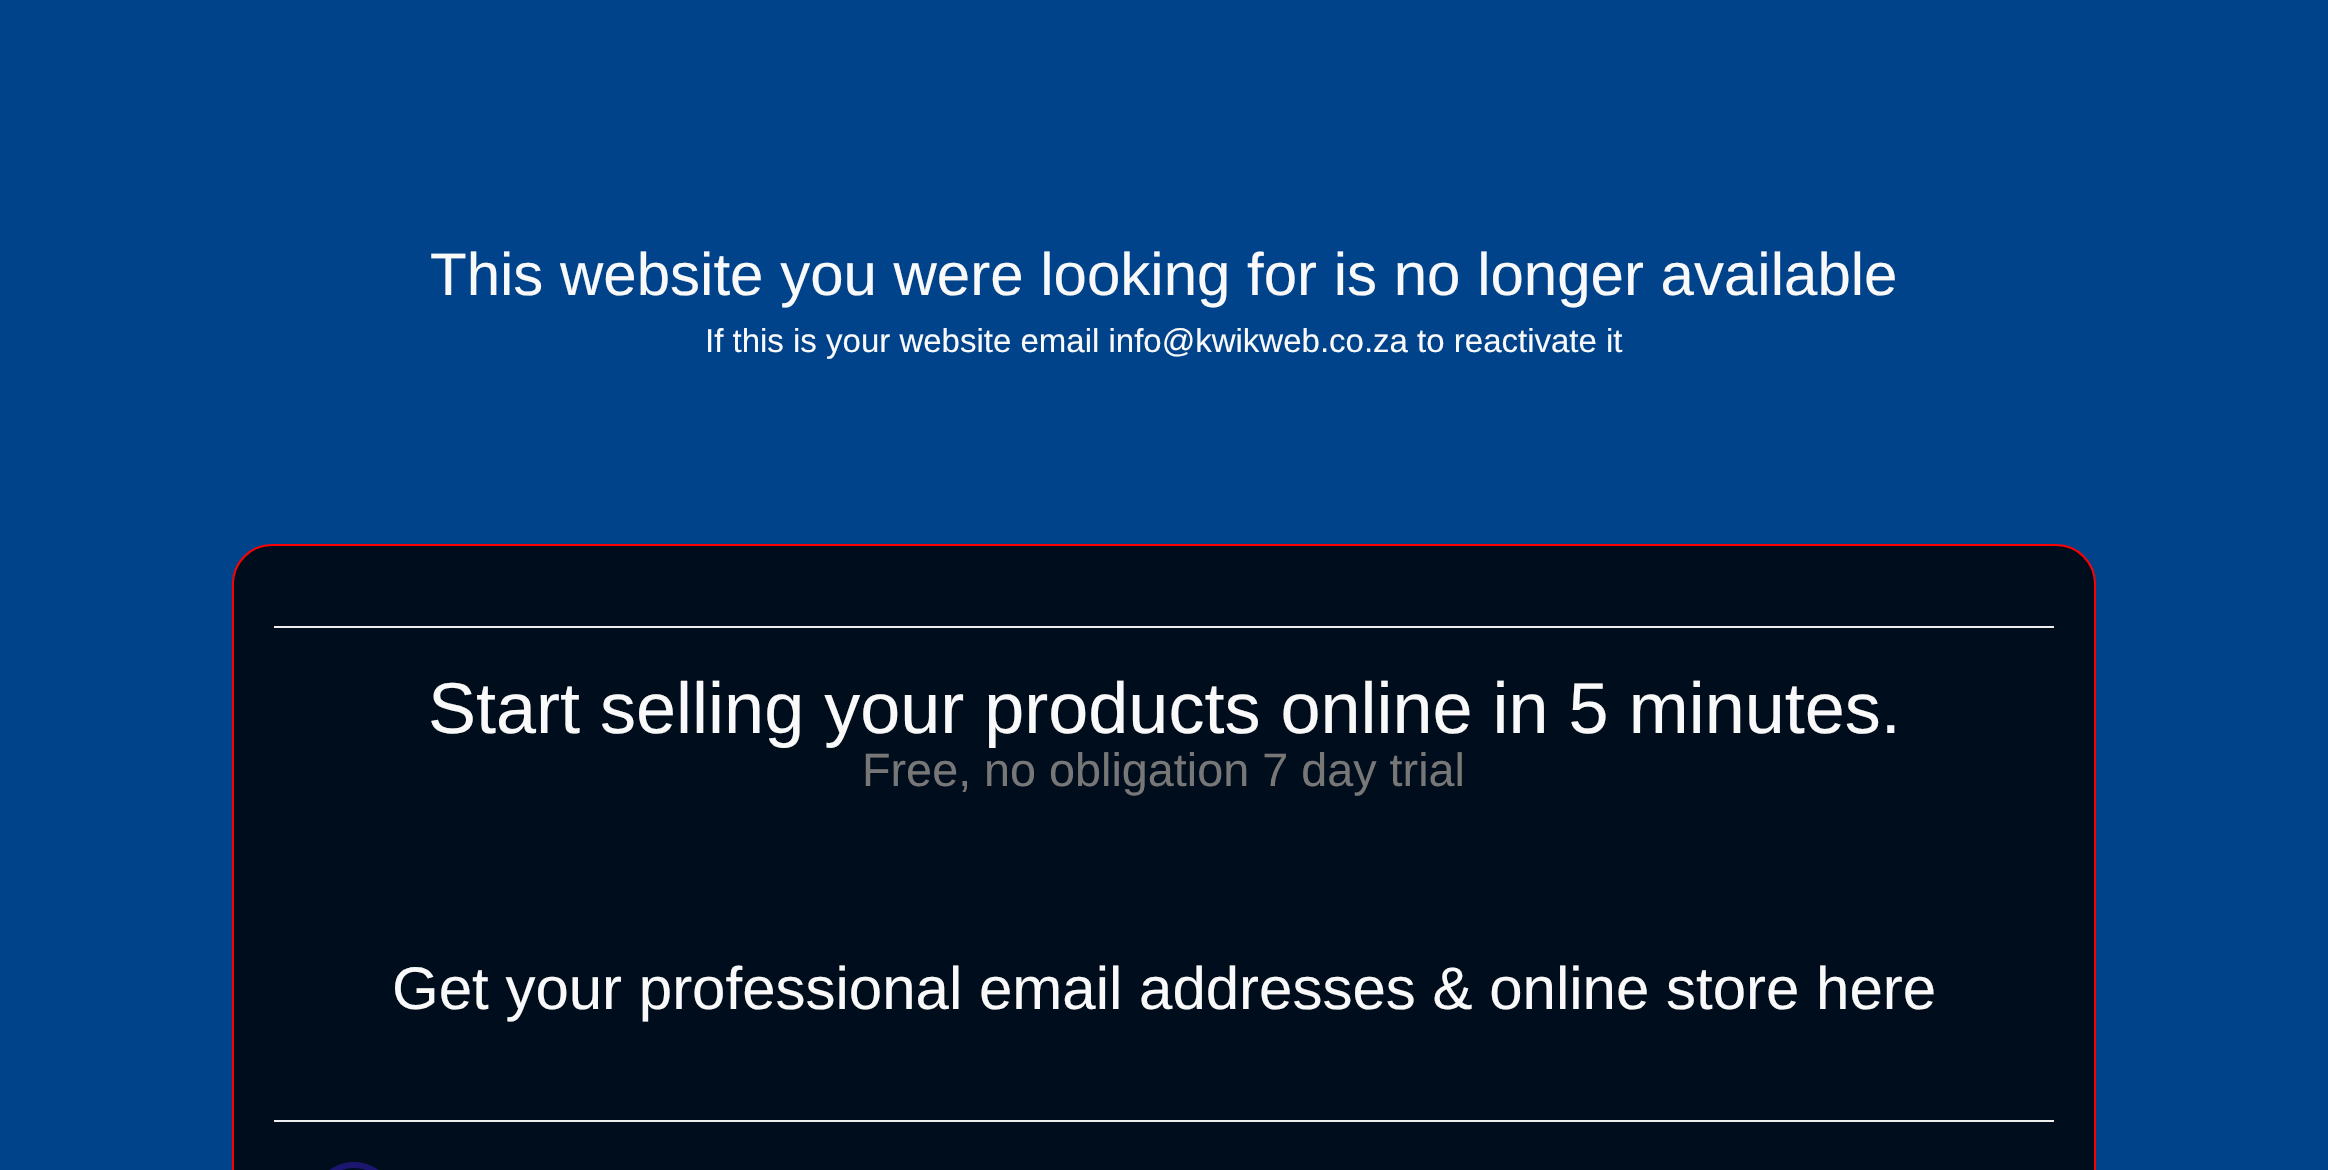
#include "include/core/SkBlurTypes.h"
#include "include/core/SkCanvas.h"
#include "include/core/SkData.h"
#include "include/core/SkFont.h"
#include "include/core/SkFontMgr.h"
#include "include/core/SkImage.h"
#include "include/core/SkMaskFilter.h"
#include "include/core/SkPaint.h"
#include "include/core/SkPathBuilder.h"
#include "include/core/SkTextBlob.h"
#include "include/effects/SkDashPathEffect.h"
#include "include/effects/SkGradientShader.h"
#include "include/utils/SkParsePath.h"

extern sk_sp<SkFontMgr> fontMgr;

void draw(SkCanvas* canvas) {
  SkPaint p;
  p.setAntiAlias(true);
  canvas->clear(SkColorSetRGB(0, 67, 139));
  p.setColor(SkColorSetRGB(0, 13, 28));
  canvas->drawRoundRect(SkRect::MakeLTRB(233, 545, 2095, 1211), 39, 39, p);
  p.setStyle(SkPaint::kStroke_Style);
  p.setStrokeWidth(2);
  p.setColor(SkColorSetRGB(255, 0, 0));
  canvas->drawRoundRect(SkRect::MakeLTRB(233, 545, 2095, 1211), 39, 39, p);
  p.setStyle(SkPaint::kFill_Style);
  p.setColor(SkColorSetRGB(238, 238, 238));
  canvas->drawRect(SkRect::MakeLTRB(274, 626, 2054, 628), p);
  canvas->drawRect(SkRect::MakeLTRB(274, 1120, 2054, 1122), p);
  canvas->drawImageRect(SkImages::DeferredFromEncodedData(SkData::MakeFromFileName("images/1.png")), SkRect::MakeLTRB(329, 1162, 379, 1170), SkSamplingOptions());
  SkFont font1(fontMgr->matchFamilyStyle("Liberation Sans", SkFontStyle::Normal()), 60);
  font1.setSubpixel(true);
  p.setColor(SkColorSetRGB(249, 249, 249));
  canvas->drawString("This website you were looking for is no longer available", 430, 295, font1, p);
  SkFont font2(fontMgr->matchFamilyStyle("Liberation Sans", SkFontStyle::Normal()), 33);
  font2.setSubpixel(true);
  canvas->drawString("If this is your website email info@kwikweb.co.za to reactivate it", 705, 352, font2, p);
  SkFont font3(fontMgr->matchFamilyStyle("Liberation Sans", SkFontStyle::Normal()), 72);
  font3.setSubpixel(true);
  canvas->drawString("Start selling your products online in 5 minutes.", 428, 733, font3, p);
  SkFont font4(fontMgr->matchFamilyStyle("Liberation Sans", SkFontStyle::Normal()), 46.75f);
  font4.setSubpixel(true);
  p.setColor(SkColorSetRGB(119, 119, 119));
  canvas->drawString("Free, no obligation 7 day trial", 862, 786, font4, p);
  p.setColor(SkColorSetRGB(249, 249, 249));
  canvas->drawString("Get your professional email addresses & online store here", 392, 1009, font1, p);
}
